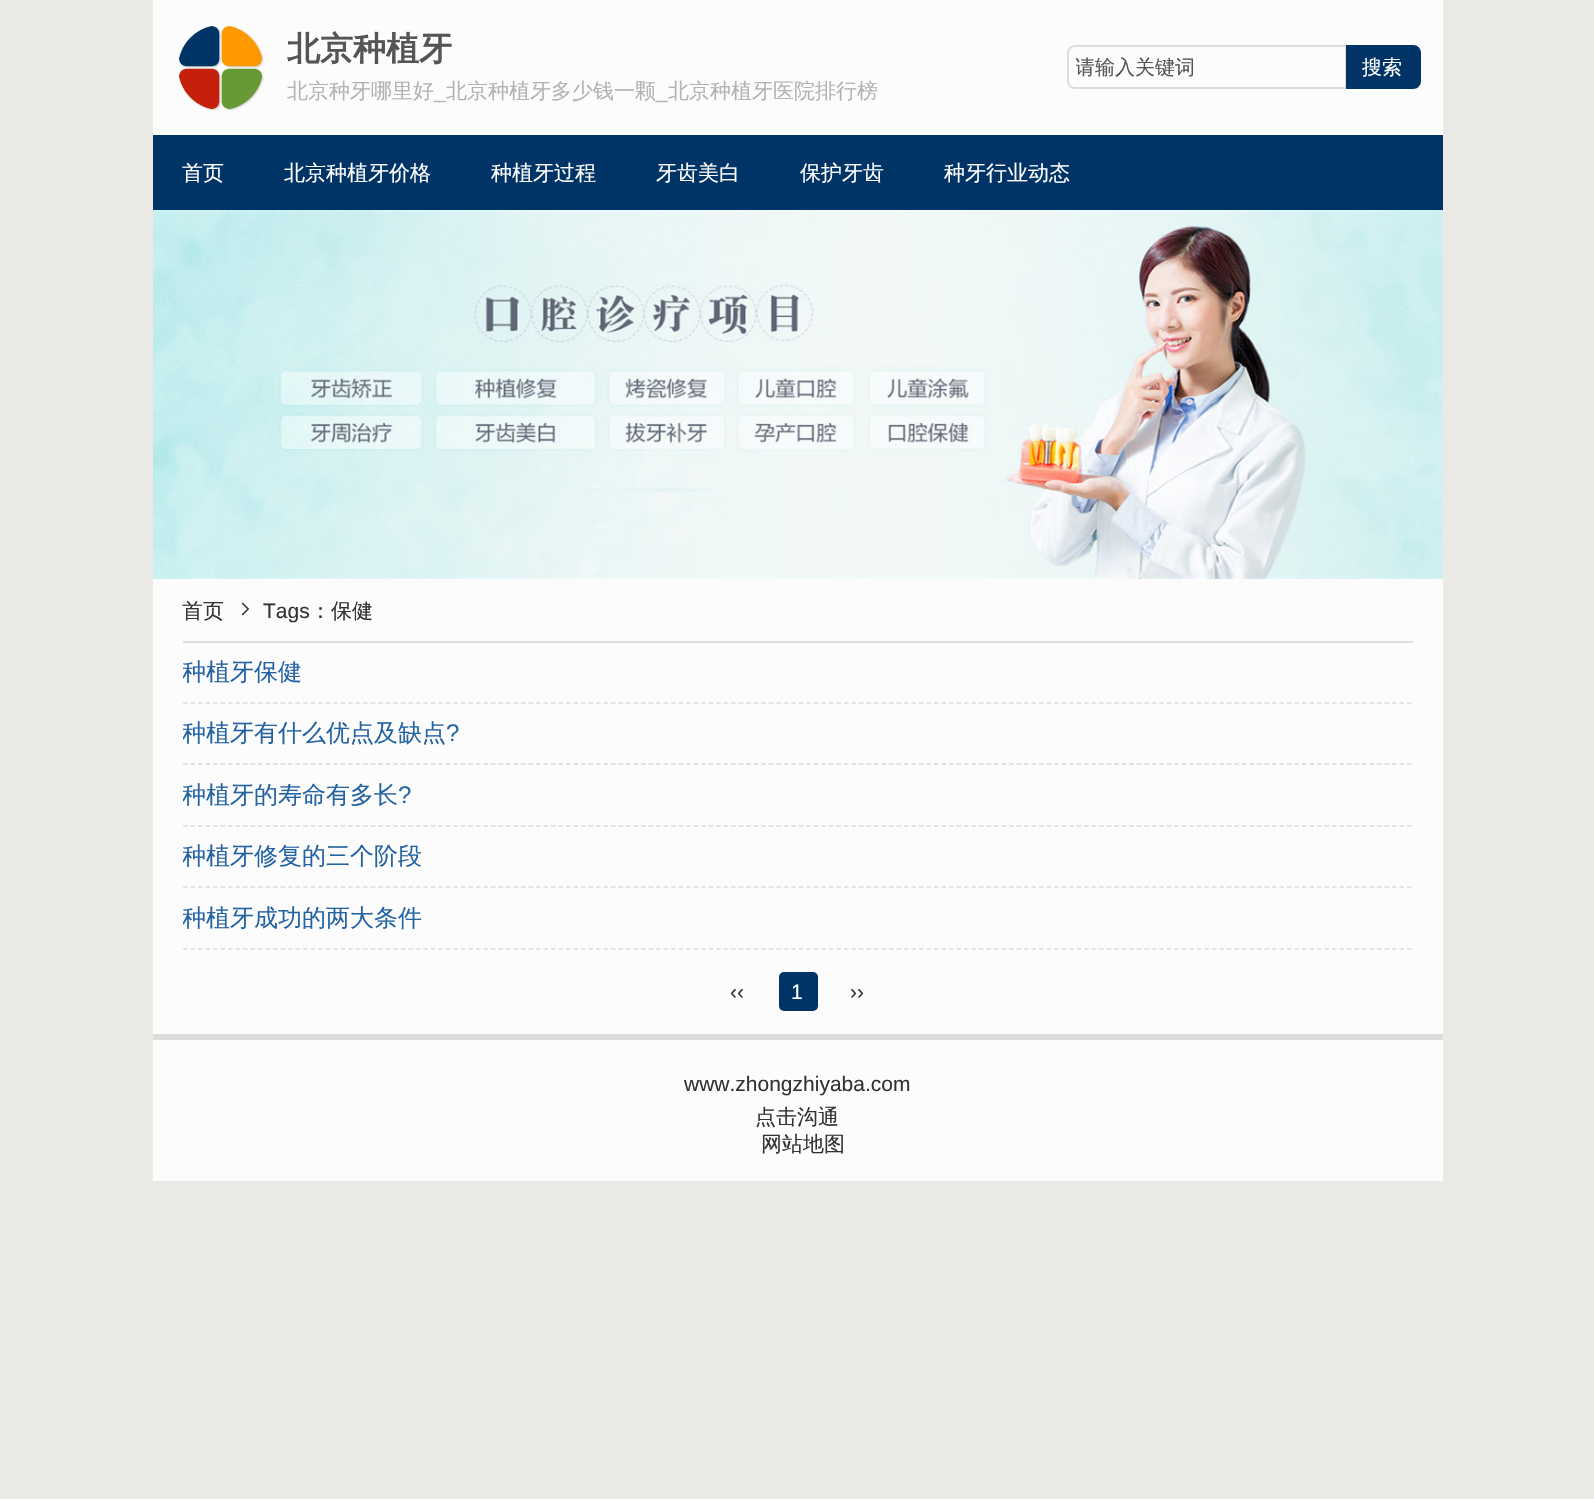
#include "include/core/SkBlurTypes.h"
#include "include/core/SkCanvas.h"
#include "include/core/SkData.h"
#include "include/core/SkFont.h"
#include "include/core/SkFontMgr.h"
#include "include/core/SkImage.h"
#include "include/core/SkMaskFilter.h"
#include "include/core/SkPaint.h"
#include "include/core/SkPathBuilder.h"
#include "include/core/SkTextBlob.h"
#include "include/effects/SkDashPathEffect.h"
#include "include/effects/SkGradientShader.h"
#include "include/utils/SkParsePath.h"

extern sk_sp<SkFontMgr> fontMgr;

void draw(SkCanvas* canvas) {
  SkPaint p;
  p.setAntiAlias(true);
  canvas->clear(SkColorSetRGB(234, 233, 230));
  p.setColor(SkColorSetRGB(252, 252, 252));
  canvas->drawRect(SkRect::MakeLTRB(153, 0, 1443, 1181), p);
  canvas->drawImageRect(SkImages::DeferredFromEncodedData(SkData::MakeFromFileName("images/1.png")), SkRect::MakeLTRB(178, 25, 264, 111), SkSamplingOptions());
  p.setStyle(SkPaint::kStroke_Style);
  p.setStrokeWidth(2);
  p.setColor(SkColorSetRGB(221, 221, 221));
  canvas->drawPath(SkPathBuilder().moveTo(1075, 46).lineTo(1346, 46).lineTo(1346, 88).lineTo(1075, 88).cubicTo(1071, 88, 1068, 85, 1068, 81).lineTo(1068, 53).cubicTo(1068, 49, 1071, 46, 1075, 46).close().detach(), p);
  p.setStyle(SkPaint::kFill_Style);
  p.setColor(SkColorSetRGB(0, 51, 102));
  canvas->drawPath(SkPathBuilder().moveTo(1346, 45).lineTo(1413, 45).cubicTo(1417.5f, 45, 1421, 48.5f, 1421, 53).lineTo(1421, 81).cubicTo(1421, 85.5f, 1417.5f, 89, 1413, 89).lineTo(1346, 89).close().detach(), p);
  canvas->drawRect(SkRect::MakeLTRB(153, 135, 1443, 210), p);
  canvas->drawImageRect(SkImages::DeferredFromEncodedData(SkData::MakeFromFileName("images/2.png")), SkRect::MakeLTRB(153, 210, 1443, 579), SkSamplingOptions());
  p.setColor(SkColorSetRGB(221, 221, 221));
  canvas->drawRect(SkRect::MakeLTRB(183, 641, 1413, 643), p);
  canvas->drawImageRect(SkImages::DeferredFromEncodedData(SkData::MakeFromFileName("images/3.png")), SkRect::MakeLTRB(241, 602, 250, 616), SkSamplingOptions());
  p.setStyle(SkPaint::kStroke_Style);
  p.setStrokeWidth(1.5f);
  p.setPathEffect(SkDashPathEffect::Make({{4.5f, 3.01f}}, 0));
  canvas->drawPath(SkPathBuilder().moveTo(183, 703).lineTo(1413, 703).detach(), p);
  p.setPathEffect(nullptr);
  p.setPathEffect(SkDashPathEffect::Make({{4.5f, 3.01f}}, 0));
  canvas->drawPath(SkPathBuilder().moveTo(183, 764).lineTo(1413, 764).detach(), p);
  p.setPathEffect(nullptr);
  p.setPathEffect(SkDashPathEffect::Make({{4.5f, 3.01f}}, 0));
  canvas->drawPath(SkPathBuilder().moveTo(183, 826).lineTo(1413, 826).detach(), p);
  p.setPathEffect(nullptr);
  p.setPathEffect(SkDashPathEffect::Make({{4.5f, 3.01f}}, 0));
  canvas->drawPath(SkPathBuilder().moveTo(183, 887).lineTo(1413, 887).detach(), p);
  p.setPathEffect(nullptr);
  p.setPathEffect(SkDashPathEffect::Make({{4.5f, 3.01f}}, 0));
  canvas->drawPath(SkPathBuilder().moveTo(183, 949).lineTo(1413, 949).detach(), p);
  p.setPathEffect(nullptr);
  p.setStyle(SkPaint::kFill_Style);
  p.setColor(SkColorSetRGB(0, 51, 102));
  canvas->drawRoundRect(SkRect::MakeLTRB(779, 972, 818, 1011), 5, 5, p);
  p.setColor(SkColorSetRGB(221, 221, 221));
  canvas->drawRect(SkRect::MakeLTRB(153, 1034, 1443, 1040), p);
  SkFont font1(fontMgr->matchFamilyStyle("WenQuanYi Zen Hei", SkFontStyle::Bold()), 33);
  font1.setSubpixel(true);
  p.setColor(SkColorSetRGB(85, 85, 85));
  canvas->drawString("北京种植牙", 287, 60, font1, p);
  SkFont font2(fontMgr->matchFamilyStyle("WenQuanYi Zen Hei", SkFontStyle(500, SkFontStyle::kNormal_Width, SkFontStyle::kUpright_Slant)), 21);
  font2.setSubpixel(true);
  p.setColor(SkColorSetRGB(179, 179, 179));
  canvas->drawString("北京种牙哪里好", 287, 98, font2, p);
  canvas->drawString("北京种植牙医院排行榜", 668, 98, font2, p);
  SkFont font3(fontMgr->matchFamilyStyle("Liberation Sans", SkFontStyle::Normal()), 21);
  font3.setSubpixel(true);
  canvas->drawString("_", 434, 98, font3, p);
  canvas->drawString("北京种植牙多少钱一颗", 446, 98, font2, p);
  canvas->drawString("_", 656, 98, font3, p);
  canvas->save();
  canvas->clipRect(SkRect::MakeLTRB(1076, 47, 1346, 87));
  SkFont font4(fontMgr->matchFamilyStyle("WenQuanYi Zen Hei", SkFontStyle(500, SkFontStyle::kNormal_Width, SkFontStyle::kUpright_Slant)), 20);
  font4.setSubpixel(true);
  p.setColor(SkColorSetRGB(85, 85, 85));
  canvas->drawString("请输入关键词", 1075, 74, font4, p);
  canvas->restore();
  p.setColor(SK_ColorWHITE);
  canvas->drawString("搜索", 1362, 74, font4, p);
  canvas->drawString("首页", 182, 180, font2, p);
  canvas->drawString("北京种植牙价格", 284, 180, font2, p);
  canvas->drawString("种植牙过程", 491, 180, font2, p);
  canvas->drawString("牙齿美白", 656, 180, font2, p);
  canvas->drawString("保护牙齿", 800, 180, font2, p);
  canvas->drawString("种牙行业动态", 944, 180, font2, p);
  p.setColor(SkColorSetRGB(51, 51, 51));
  canvas->drawString("首页", 182, 618, font2, p);
  canvas->drawString("Tags", 263, 618, font3, p);
  canvas->drawString("：保健", 310, 618, font2, p);
  canvas->save();
  canvas->clipRect(SkRect::MakeLTRB(183, 642, 1413, 702));
  SkFont font5(fontMgr->matchFamilyStyle("WenQuanYi Zen Hei", SkFontStyle(500, SkFontStyle::kNormal_Width, SkFontStyle::kUpright_Slant)), 24);
  font5.setSubpixel(true);
  p.setColor(SkColorSetRGB(36, 99, 162));
  canvas->drawString("种植牙保健", 182, 680, font5, p);
  canvas->restore();
  canvas->save();
  canvas->clipRect(SkRect::MakeLTRB(183, 704, 1413, 764));
  canvas->drawString("种植牙有什么优点及缺点", 182, 741, font5, p);
  canvas->restore();
  SkFont font6(fontMgr->matchFamilyStyle("Liberation Sans", SkFontStyle::Normal()), 24);
  font6.setSubpixel(true);
  canvas->drawString("?", 446, 741, font6, p);
  canvas->save();
  canvas->clipRect(SkRect::MakeLTRB(183, 765, 1413, 825));
  canvas->drawString("种植牙的寿命有多长", 182, 803, font5, p);
  canvas->restore();
  canvas->drawString("?", 398, 803, font6, p);
  canvas->save();
  canvas->clipRect(SkRect::MakeLTRB(183, 827, 1413, 887));
  canvas->drawString("种植牙修复的三个阶段", 182, 864, font5, p);
  canvas->restore();
  canvas->save();
  canvas->clipRect(SkRect::MakeLTRB(183, 888, 1413, 948));
  canvas->drawString("种植牙成功的两大条件", 182, 926, font5, p);
  canvas->restore();
  p.setColor(SkColorSetRGB(51, 51, 51));
  canvas->drawString("‹‹", 730, 999, font3, p);
  p.setColor(SK_ColorWHITE);
  canvas->drawString("1", 791, 999, font3, p);
  p.setColor(SkColorSetRGB(51, 51, 51));
  canvas->drawString("››", 850, 999, font3, p);
  canvas->drawString("www.zhongzhiyaba.com", 684, 1091, font3, p);
  canvas->drawString("点击沟通", 755, 1124, font2, p);
  canvas->drawString("网站地图", 761, 1151, font2, p);
}
